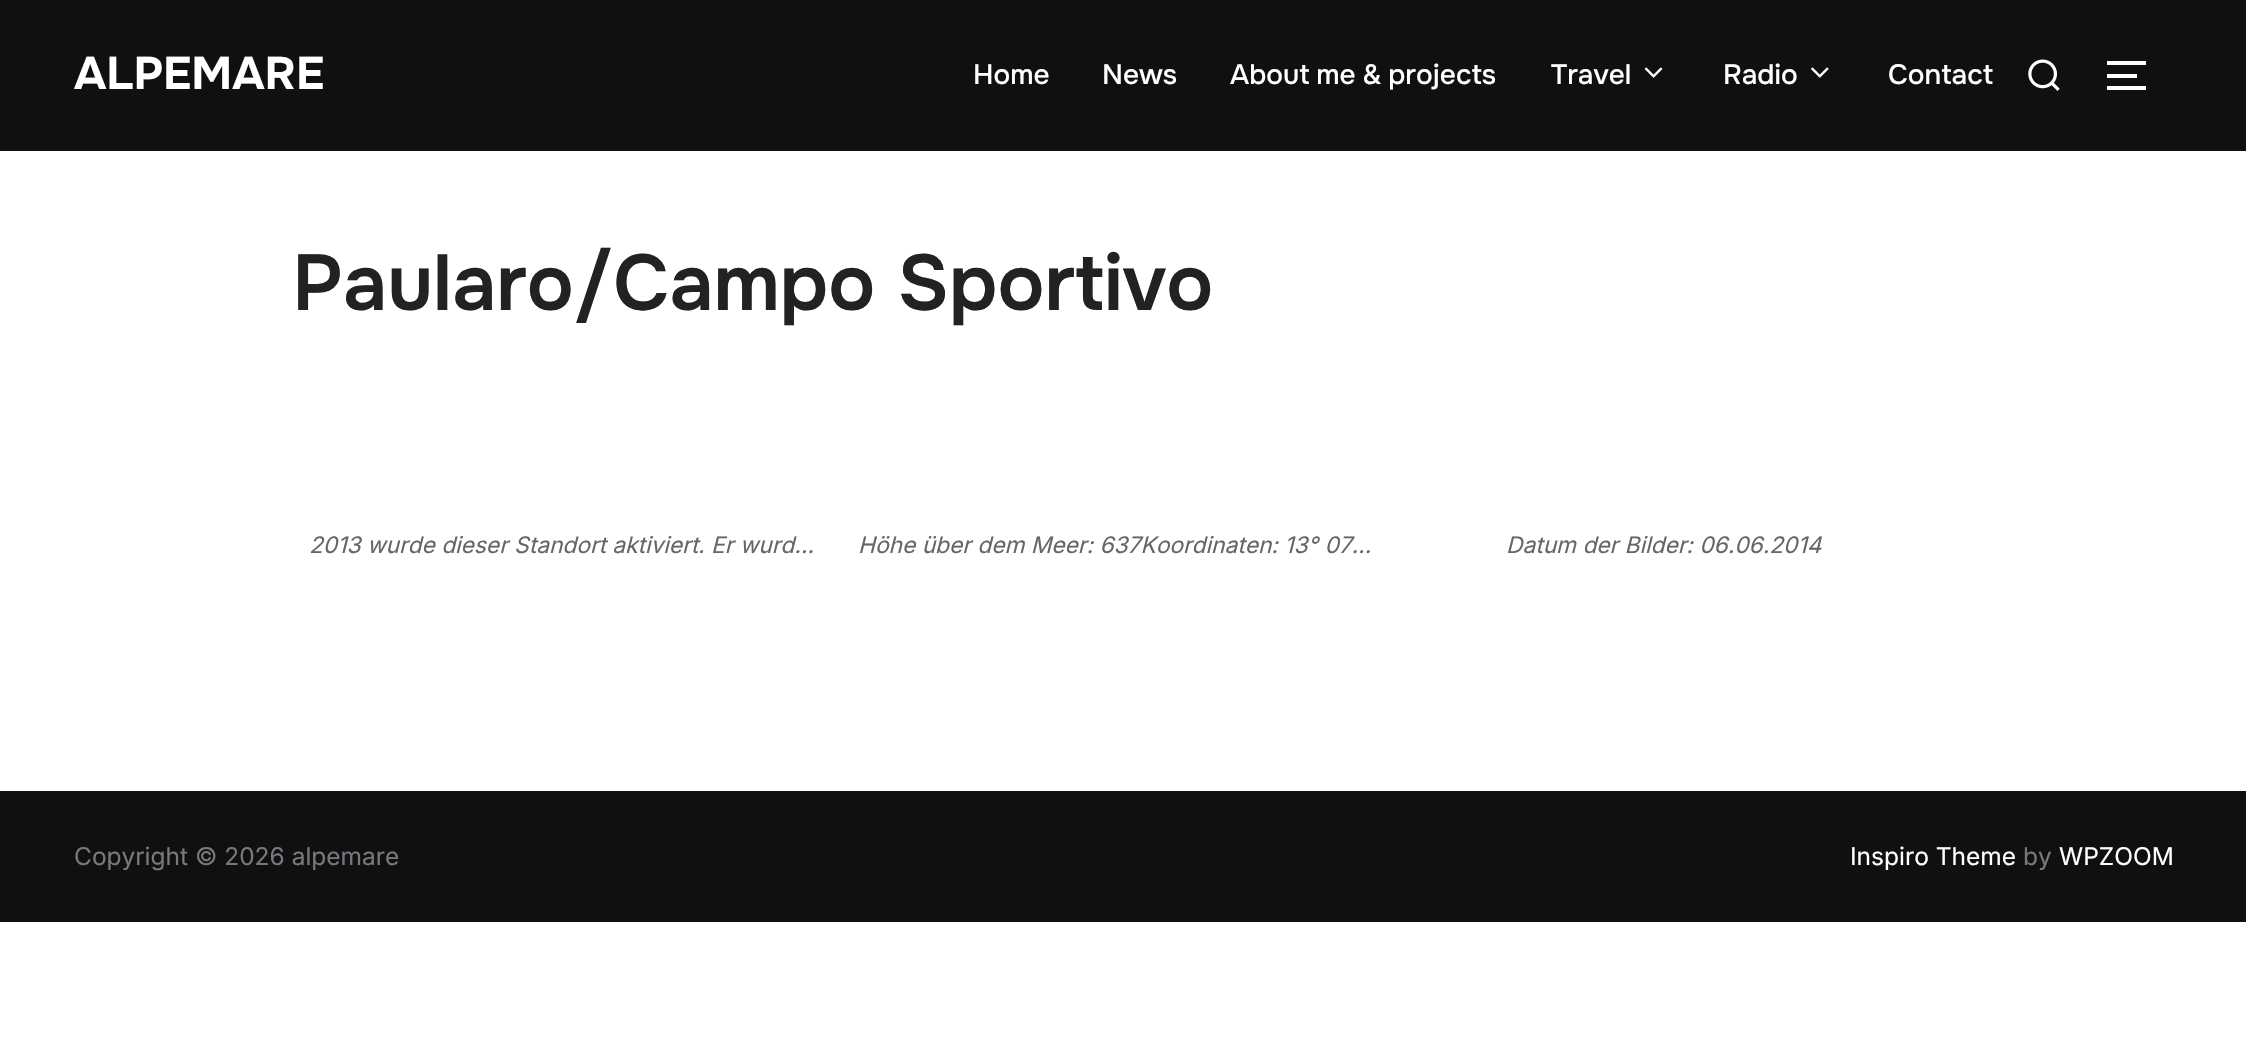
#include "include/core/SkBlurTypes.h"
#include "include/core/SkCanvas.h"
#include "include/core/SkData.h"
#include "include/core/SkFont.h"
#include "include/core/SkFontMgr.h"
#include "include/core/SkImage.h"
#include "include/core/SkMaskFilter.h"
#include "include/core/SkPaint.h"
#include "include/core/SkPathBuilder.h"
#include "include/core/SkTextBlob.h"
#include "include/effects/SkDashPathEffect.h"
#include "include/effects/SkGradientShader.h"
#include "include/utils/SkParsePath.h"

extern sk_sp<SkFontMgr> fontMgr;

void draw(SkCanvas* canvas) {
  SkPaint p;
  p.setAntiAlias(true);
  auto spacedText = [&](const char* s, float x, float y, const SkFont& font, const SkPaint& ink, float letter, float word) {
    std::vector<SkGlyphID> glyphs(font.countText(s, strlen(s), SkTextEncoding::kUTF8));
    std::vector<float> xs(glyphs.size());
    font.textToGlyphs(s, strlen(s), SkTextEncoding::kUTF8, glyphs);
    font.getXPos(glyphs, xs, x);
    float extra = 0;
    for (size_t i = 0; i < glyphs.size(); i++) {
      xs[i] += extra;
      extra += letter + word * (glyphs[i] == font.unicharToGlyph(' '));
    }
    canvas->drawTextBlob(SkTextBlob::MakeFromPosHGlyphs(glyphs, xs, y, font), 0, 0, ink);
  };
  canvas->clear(SK_ColorWHITE);
  p.setColor(SkColorSetRGB(16, 16, 16));
  canvas->drawRect(SkRect::MakeLTRB(0, 0, 2246, 151), p);
  canvas->drawImageRect(SkImages::DeferredFromEncodedData(SkData::MakeFromFileName("images/1.png")), SkRect::MakeLTRB(1644, 67, 1663, 78), SkSamplingOptions());
  canvas->drawImageRect(SkImages::DeferredFromEncodedData(SkData::MakeFromFileName("images/2.png")), SkRect::MakeLTRB(1811, 67, 1829, 78), SkSamplingOptions());
  canvas->drawImageRect(SkImages::DeferredFromEncodedData(SkData::MakeFromFileName("images/3.png")), SkRect::MakeLTRB(2028, 59, 2060, 91), SkSamplingOptions());
  p.setColor(SK_ColorWHITE);
  canvas->drawRect(SkRect::MakeLTRB(2107, 61, 2146, 65), p);
  canvas->drawRect(SkRect::MakeLTRB(2107, 74, 2137, 78), p);
  canvas->drawRect(SkRect::MakeLTRB(2107, 86, 2146, 90), p);
  p.setColor(SkColorSetRGB(16, 16, 16));
  canvas->drawRect(SkRect::MakeLTRB(0, 791, 2246, 922), p);
  SkFont font1(fontMgr->matchFamilyStyle("Onest", SkFontStyle::Bold()), 45.5f);
  font1.setSubpixel(true);
  p.setColor(SK_ColorWHITE);
  canvas->drawString("ALPEMARE", 74, 89, font1, p);
  SkFont font2(fontMgr->matchFamilyStyle("Onest", SkFontStyle(500, SkFontStyle::kNormal_Width, SkFontStyle::kUpright_Slant)), 28);
  font2.setSubpixel(true);
  canvas->drawString("Home", 973, 84, font2, p);
  canvas->drawString("News", 1102, 84, font2, p);
  spacedText("About me & projects", 1230, 84, font2, p, 0, -1);
  canvas->drawString("Travel", 1551, 84, font2, p);
  canvas->drawString("Radio", 1723, 84, font2, p);
  canvas->drawString("Contact", 1888, 84, font2, p);
  SkFont font3(fontMgr->matchFamilyStyle("Onest", SkFontStyle(600, SkFontStyle::kNormal_Width, SkFontStyle::kUpright_Slant)), 78.75f);
  font3.setSubpixel(true);
  p.setColor(SkColorSetRGB(34, 34, 34));
  canvas->drawString("Paularo/Campo Sportivo", 292, 310, font3, p);
  SkFont font4(fontMgr->matchFamilyStyle("Inter", SkFontStyle::Italic()), 22.75f);
  font4.setSubpixel(true);
  p.setColor(SkColorSetRGB(102, 102, 102));
  canvas->drawString("2013 wurde dieser Standort aktiviert. Er wurd…", 309, 553, font4, p);
  canvas->drawString("Höhe über dem Meer: 637Koordinaten: 13° 07…", 858, 553, font4, p);
  canvas->drawString("Datum der Bilder: 06.06.2014", 1506, 553, font4, p);
  SkFont font5(fontMgr->matchFamilyStyle("Inter", SkFontStyle::Normal()), 24.5f);
  font5.setSubpixel(true);
  p.setColor(SkColorSetRGB(120, 120, 127));
  canvas->drawString("Copyright © 2026 alpemare", 74, 865, font5, p);
  p.setColor(SK_ColorWHITE);
  canvas->drawString("Inspiro Theme", 1850, 865, font5, p);
  p.setColor(SkColorSetRGB(120, 120, 127));
  canvas->drawString("by", 2023, 865, font5, p);
  p.setColor(SK_ColorWHITE);
  canvas->drawString("WPZOOM", 2059, 865, font5, p);
}
